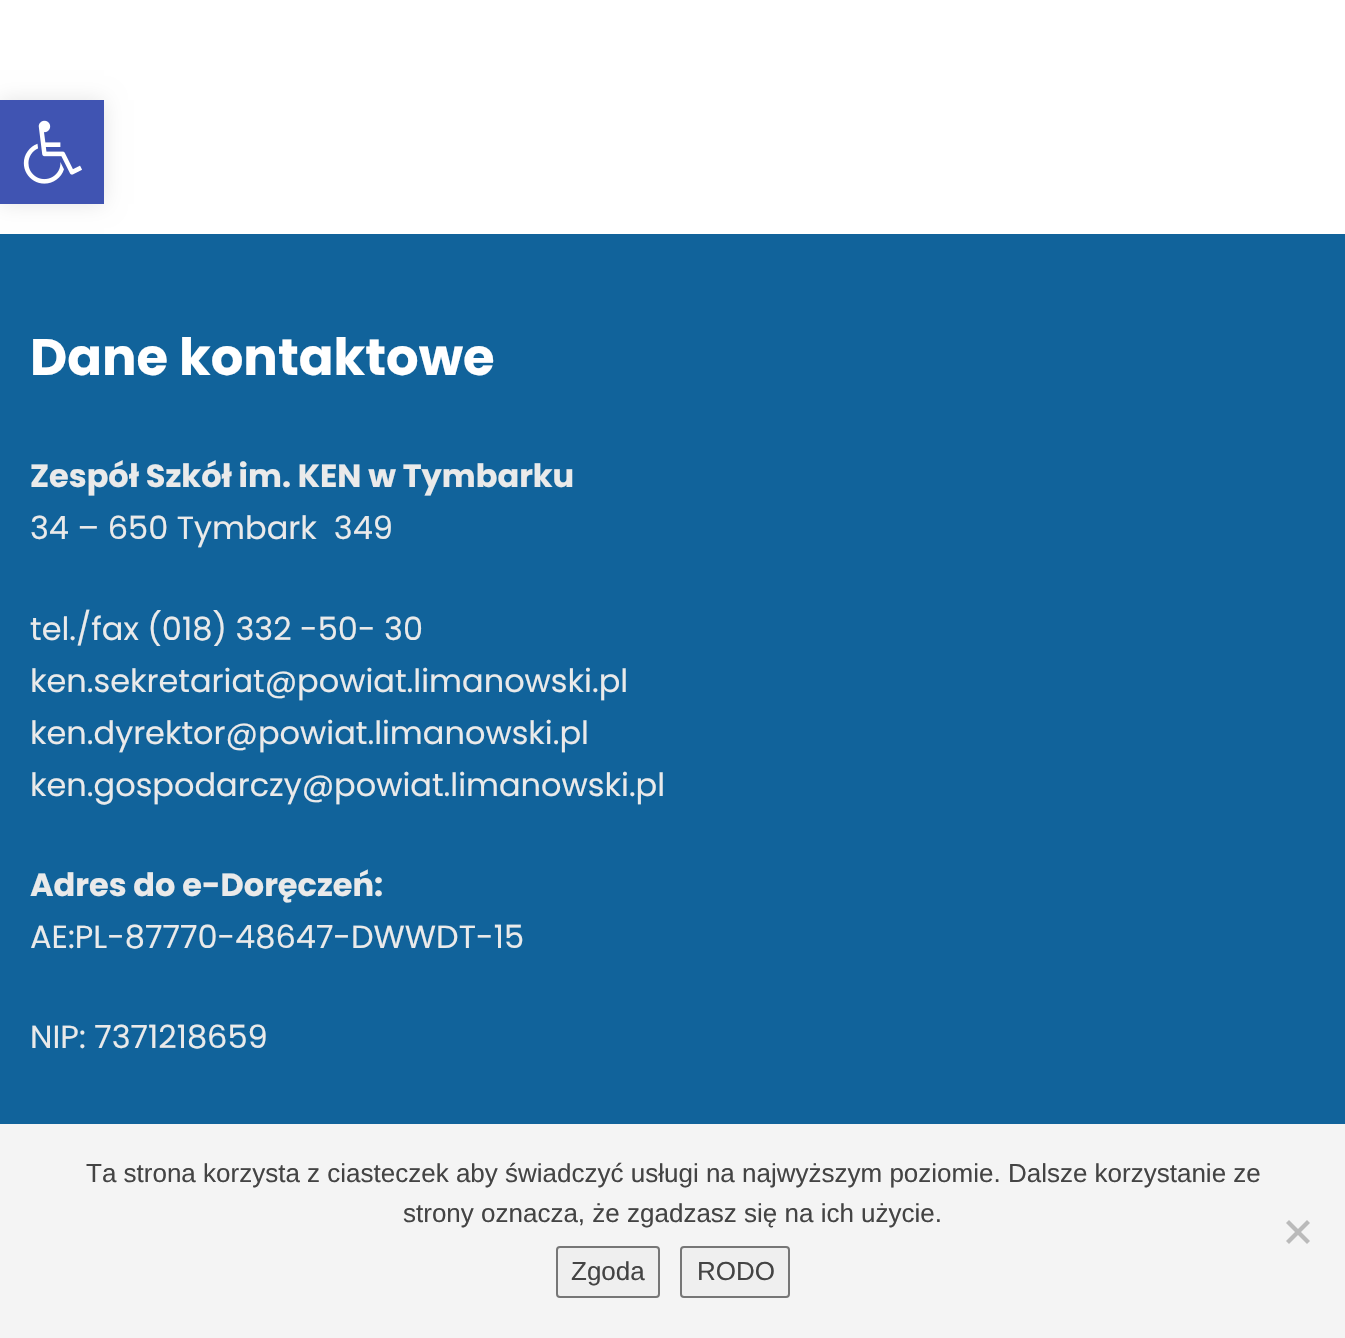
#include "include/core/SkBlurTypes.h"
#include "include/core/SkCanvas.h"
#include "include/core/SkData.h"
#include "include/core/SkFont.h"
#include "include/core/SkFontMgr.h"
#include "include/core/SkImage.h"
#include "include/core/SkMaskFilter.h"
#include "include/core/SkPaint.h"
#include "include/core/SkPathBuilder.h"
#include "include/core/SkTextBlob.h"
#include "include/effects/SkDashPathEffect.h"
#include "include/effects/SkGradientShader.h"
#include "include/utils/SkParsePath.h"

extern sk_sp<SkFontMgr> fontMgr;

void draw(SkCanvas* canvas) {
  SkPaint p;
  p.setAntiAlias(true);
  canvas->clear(SK_ColorWHITE);
  p.setColor(SkColorSetRGB(17, 99, 155));
  canvas->drawRect(SkRect::MakeLTRB(0, 234, 1345, 1124), p);
  p.setColor(SkColorSetARGB(26, 0, 0, 0));
  p.setMaskFilter(SkMaskFilter::MakeBlur(kNormal_SkBlurStyle, 10));
  canvas->drawRect(SkRect::MakeLTRB(0, 100, 104, 204), p);
  p.setMaskFilter(nullptr);
  p.setColor(SkColorSetRGB(64, 84, 178));
  canvas->drawRect(SkRect::MakeLTRB(0, 100, 104, 204), p);
  canvas->drawImageRect(SkImages::DeferredFromEncodedData(SkData::MakeFromFileName("images/1.png")), SkRect::MakeLTRB(23, 120, 82, 184), SkSamplingOptions());
  p.setColor(SkColorSetRGB(244, 244, 244));
  canvas->drawRect(SkRect::MakeLTRB(0, 1124, 1345, 1338), p);
  p.setColor(SkColorSetRGB(186, 186, 186));
  canvas->drawPath(SkPathBuilder().moveTo(1307, 1220).lineTo(1310, 1223).lineTo(1289, 1244).lineTo(1286, 1241).close().detach(), p);
  canvas->drawPath(SkPathBuilder().moveTo(1286, 1223).lineTo(1289, 1220).lineTo(1310, 1241).lineTo(1307, 1244).close().detach(), p);
  p.setColor(SkColorSetRGB(239, 239, 239));
  canvas->drawRoundRect(SkRect::MakeLTRB(557, 1247, 659, 1297), 3, 3, p);
  p.setStyle(SkPaint::kStroke_Style);
  p.setStrokeWidth(2);
  p.setColor(SkColorSetRGB(118, 118, 118));
  canvas->drawRoundRect(SkRect::MakeLTRB(557, 1247, 659, 1297), 3, 3, p);
  p.setStyle(SkPaint::kFill_Style);
  p.setColor(SkColorSetRGB(239, 239, 239));
  canvas->drawRoundRect(SkRect::MakeLTRB(681, 1247, 789, 1297), 3, 3, p);
  p.setStyle(SkPaint::kStroke_Style);
  p.setColor(SkColorSetRGB(118, 118, 118));
  canvas->drawRoundRect(SkRect::MakeLTRB(681, 1247, 789, 1297), 3, 3, p);
  SkFont font1(fontMgr->matchFamilyStyle("Poppins", SkFontStyle::Bold()), 51.25f);
  font1.setSubpixel(true);
  p.setStyle(SkPaint::kFill_Style);
  p.setColor(SK_ColorWHITE);
  canvas->drawString("Dane kontaktowe", 30, 375, font1, p);
  SkFont font2(fontMgr->matchFamilyStyle("Poppins", SkFontStyle::Bold()), 32);
  font2.setSubpixel(true);
  p.setColor(SkColorSetRGB(234, 234, 234));
  canvas->drawString("Zespół Szkół im. KEN w Tymbarku", 30, 487, font2, p);
  SkFont font3(fontMgr->matchFamilyStyle("Poppins", SkFontStyle::Normal()), 32);
  font3.setSubpixel(true);
  canvas->drawString("34 – 650 Tymbark  349", 30, 539, font3, p);
  canvas->drawString("tel./fax (018) 332 -50- 30", 30, 640, font3, p);
  canvas->drawString("ken.sekretariat@powiat.limanowski.pl", 30, 692, font3, p);
  canvas->drawString("ken.dyrektor@powiat.limanowski.pl", 30, 744, font3, p);
  canvas->drawString("ken.gospodarczy@powiat.limanowski.pl", 30, 796, font3, p);
  canvas->drawString("Adres do e-Doręczeń:", 30, 896, font2, p);
  canvas->drawString("AE:PL-87770-48647-DWWDT-15", 30, 948, font3, p);
  canvas->drawString("NIP: 7371218659", 30, 1048, font3, p);
  SkFont font4(fontMgr->matchFamilyStyle("Liberation Sans", SkFontStyle::Normal()), 26);
  font4.setSubpixel(true);
  p.setColor(SkColorSetRGB(68, 68, 68));
  canvas->drawString("Ta strona korzysta z ciasteczek aby świadczyć usługi na najwyższym poziomie. Dalsze korzystanie ze", 86, 1182, font4, p);
  canvas->drawString("strony oznacza, że zgadzasz się na ich użycie.", 403, 1222, font4, p);
  canvas->drawString("Zgoda", 571, 1280, font4, p);
  canvas->drawString("RODO", 697, 1280, font4, p);
}
